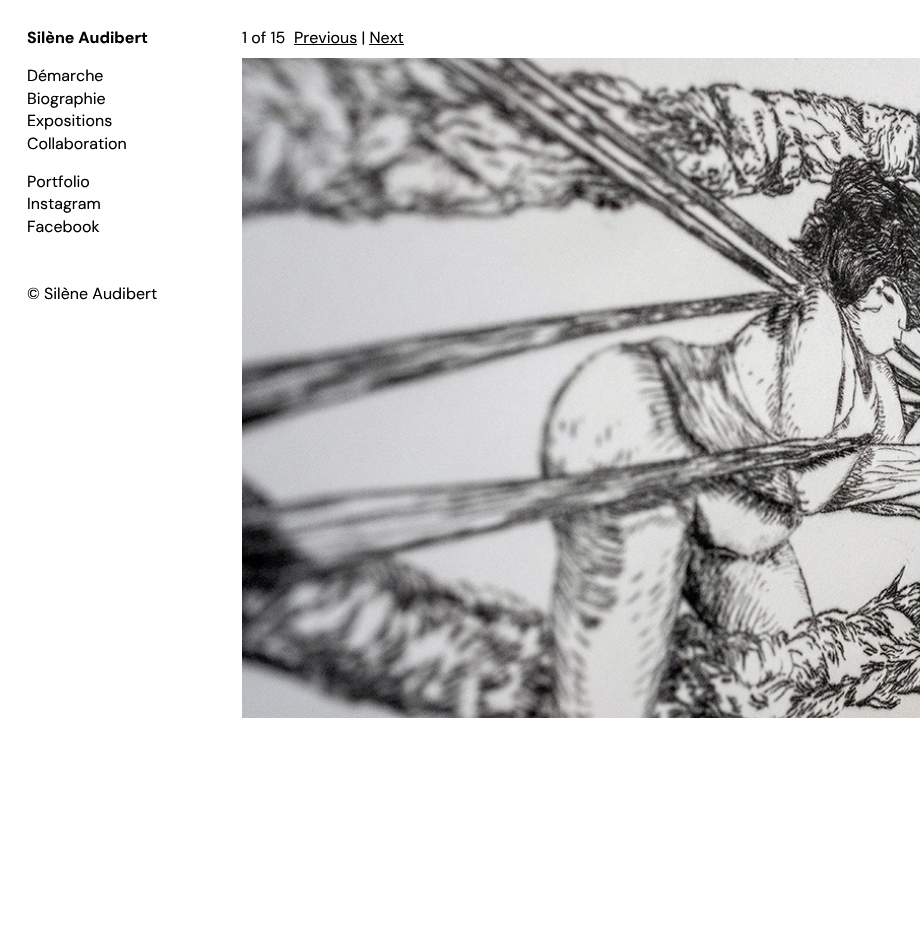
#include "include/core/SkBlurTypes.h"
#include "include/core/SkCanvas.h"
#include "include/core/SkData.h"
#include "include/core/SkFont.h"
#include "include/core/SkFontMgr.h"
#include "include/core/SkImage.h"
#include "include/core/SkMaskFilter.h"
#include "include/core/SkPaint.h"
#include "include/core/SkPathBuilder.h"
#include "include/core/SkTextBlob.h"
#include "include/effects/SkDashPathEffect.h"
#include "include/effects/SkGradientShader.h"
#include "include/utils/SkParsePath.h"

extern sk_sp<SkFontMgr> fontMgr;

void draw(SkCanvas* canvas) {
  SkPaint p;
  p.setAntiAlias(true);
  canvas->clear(SK_ColorWHITE);
  p.setColor(SK_ColorBLACK);
  canvas->drawRect(SkRect::MakeLTRB(294, 44, 357, 45), p);
  canvas->drawRect(SkRect::MakeLTRB(369, 44, 404, 45), p);
  canvas->drawImageRect(SkImages::DeferredFromEncodedData(SkData::MakeFromFileName("images/1.png")), SkRect::MakeLTRB(242, 58, 920, 718), SkSamplingOptions());
  SkFont font1(fontMgr->matchFamilyStyle("DM Sans", SkFontStyle::Bold()), 16);
  font1.setSubpixel(true);
  canvas->drawString("Silène Audibert", 27, 43, font1, p);
  SkFont font2(fontMgr->matchFamilyStyle("DM Sans", SkFontStyle::Normal()), 16);
  font2.setSubpixel(true);
  canvas->drawString("Démarche", 27, 81, font2, p);
  canvas->drawString("Biographie", 27, 104, font2, p);
  canvas->drawString("Expositions", 27, 126, font2, p);
  canvas->drawString("Collaboration", 27, 149, font2, p);
  canvas->drawString("Portfolio", 27, 187, font2, p);
  canvas->drawString("Instagram", 27, 209, font2, p);
  canvas->drawString("Facebook", 27, 232, font2, p);
  canvas->drawString("© Silène Audibert", 27, 299, font2, p);
  canvas->drawString("1 of 15", 242, 43, font2, p);
  canvas->drawString("Previous | Next", 294, 43, font2, p);
}
